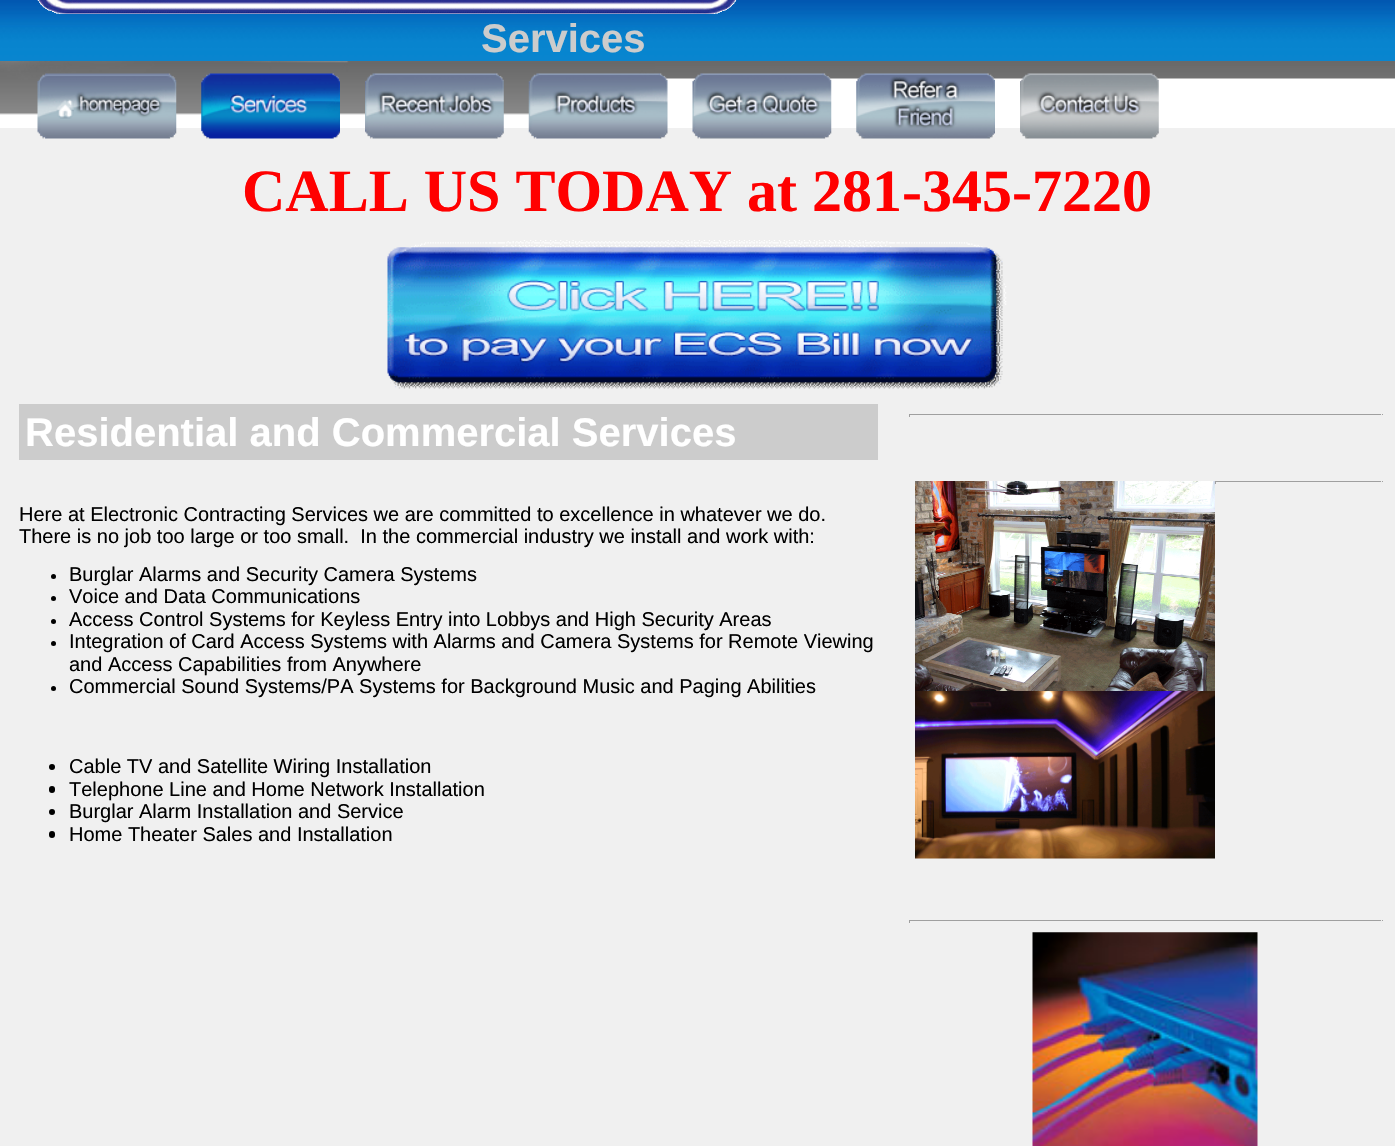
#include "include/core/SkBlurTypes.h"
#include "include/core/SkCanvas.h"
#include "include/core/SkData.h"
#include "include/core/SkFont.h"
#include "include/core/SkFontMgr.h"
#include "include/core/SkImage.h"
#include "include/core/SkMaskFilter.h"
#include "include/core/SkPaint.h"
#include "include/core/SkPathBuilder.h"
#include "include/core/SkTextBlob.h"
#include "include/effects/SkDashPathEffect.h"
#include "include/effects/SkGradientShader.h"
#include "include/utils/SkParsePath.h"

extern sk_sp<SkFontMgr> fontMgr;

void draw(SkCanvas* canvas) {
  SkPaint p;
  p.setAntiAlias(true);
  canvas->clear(SkColorSetRGB(240, 240, 240));
  canvas->drawImageRect(SkImages::DeferredFromEncodedData(SkData::MakeFromFileName("images/1.png")), SkRect::MakeLTRB(0, 0, 1395, 61), SkSamplingOptions());
  canvas->drawImageRect(SkImages::DeferredFromEncodedData(SkData::MakeFromFileName("images/2.png")), SkRect::MakeLTRB(37, 0, 737, 14), SkSamplingOptions());
  p.setColor(SK_ColorWHITE);
  canvas->drawRect(SkRect::MakeLTRB(0, 79, 1395, 128), p);
  canvas->drawImageRect(SkImages::DeferredFromEncodedData(SkData::MakeFromFileName("images/3.png")), SkRect::MakeLTRB(655, 61, 1395, 79), SkSamplingOptions());
  canvas->drawImageRect(SkImages::DeferredFromEncodedData(SkData::MakeFromFileName("images/4.png")), SkRect::MakeLTRB(0, 61, 655, 115), SkSamplingOptions());
  canvas->drawImageRect(SkImages::DeferredFromEncodedData(SkData::MakeFromFileName("images/5.png")), SkRect::MakeLTRB(37, 73, 177, 139), SkSamplingOptions());
  canvas->drawImageRect(SkImages::DeferredFromEncodedData(SkData::MakeFromFileName("images/6.png")), SkRect::MakeLTRB(201, 73, 340, 139), SkSamplingOptions());
  canvas->drawImageRect(SkImages::DeferredFromEncodedData(SkData::MakeFromFileName("images/7.png")), SkRect::MakeLTRB(365, 73, 504, 139), SkSamplingOptions());
  canvas->drawImageRect(SkImages::DeferredFromEncodedData(SkData::MakeFromFileName("images/8.png")), SkRect::MakeLTRB(528, 73, 668, 139), SkSamplingOptions());
  canvas->drawImageRect(SkImages::DeferredFromEncodedData(SkData::MakeFromFileName("images/9.png")), SkRect::MakeLTRB(692, 73, 832, 139), SkSamplingOptions());
  canvas->drawImageRect(SkImages::DeferredFromEncodedData(SkData::MakeFromFileName("images/10.png")), SkRect::MakeLTRB(856, 73, 995, 139), SkSamplingOptions());
  canvas->drawImageRect(SkImages::DeferredFromEncodedData(SkData::MakeFromFileName("images/11.png")), SkRect::MakeLTRB(1020, 73, 1159, 139), SkSamplingOptions());
  canvas->drawImageRect(SkImages::DeferredFromEncodedData(SkData::MakeFromFileName("images/12.png")), SkRect::MakeLTRB(387, 240, 1007, 389), SkSamplingOptions());
  p.setColor(SkColorSetRGB(204, 204, 204));
  canvas->drawRect(SkRect::MakeLTRB(19, 404, 878, 460), p);
  p.setColor(SK_ColorBLACK);
  canvas->drawCircle(53.5f, 576.5f, 2.5f, p);
  canvas->drawCircle(53.5f, 598.5f, 2.5f, p);
  canvas->drawCircle(53.5f, 621.5f, 2.5f, p);
  canvas->drawCircle(53.5f, 643.5f, 2.5f, p);
  canvas->drawCircle(53.5f, 688.5f, 2.5f, p);
  canvas->drawCircle(52, 767, 3, p);
  canvas->drawRoundRect(SkRect::MakeLTRB(49, 786, 55, 793), 3, 3, p);
  canvas->drawCircle(52, 812, 3, p);
  canvas->drawRoundRect(SkRect::MakeLTRB(49, 831, 55, 838), 3, 3, p);
  p.setColor(SkColorSetRGB(159, 159, 159));
  canvas->drawRect(SkRect::MakeLTRB(909, 414, 1383, 415), p);
  p.setColor(SkColorSetRGB(238, 238, 238));
  canvas->drawRect(SkRect::MakeLTRB(1381, 414, 1382, 417), p);
  p.setColor(SkColorSetRGB(159, 159, 159));
  canvas->drawRect(SkRect::MakeLTRB(909, 414, 910, 417), p);
  canvas->drawImageRect(SkImages::DeferredFromEncodedData(SkData::MakeFromFileName("images/13.png")), SkRect::MakeLTRB(915, 481, 1215, 691), SkSamplingOptions());
  canvas->drawImageRect(SkImages::DeferredFromEncodedData(SkData::MakeFromFileName("images/14.png")), SkRect::MakeLTRB(915, 691, 1215, 859), SkSamplingOptions());
  canvas->drawRect(SkRect::MakeLTRB(1215, 481, 1383, 482), p);
  p.setColor(SkColorSetRGB(238, 238, 238));
  canvas->drawRect(SkRect::MakeLTRB(1381, 481, 1382, 484), p);
  p.setColor(SkColorSetRGB(159, 159, 159));
  canvas->drawRect(SkRect::MakeLTRB(1215, 481, 1216, 484), p);
  canvas->drawRect(SkRect::MakeLTRB(909, 920, 1383, 921), p);
  p.setColor(SkColorSetRGB(238, 238, 238));
  canvas->drawRect(SkRect::MakeLTRB(1381, 920, 1382, 923), p);
  p.setColor(SkColorSetRGB(159, 159, 159));
  canvas->drawRect(SkRect::MakeLTRB(909, 920, 910, 923), p);
  canvas->drawImageRect(SkImages::DeferredFromEncodedData(SkData::MakeFromFileName("images/15.png")), SkRect::MakeLTRB(1032, 932, 1258, 1146), SkSamplingOptions());
  SkFont font1(fontMgr->matchFamilyStyle("Liberation Sans", SkFontStyle::Bold()), 40);
  font1.setSubpixel(true);
  p.setColor(SkColorSetRGB(204, 204, 204));
  canvas->drawString("Services", 481, 52, font1, p);
  SkFont font2(fontMgr->matchFamilyStyle("Liberation Serif", SkFontStyle::Bold()), 60);
  font2.setSubpixel(true);
  p.setColor(SkColorSetRGB(255, 0, 0));
  canvas->drawString("CALL US TODAY at 281-345-7220", 242, 211, font2, p);
  p.setColor(SK_ColorWHITE);
  canvas->drawString("Residential and Commercial Services", 25, 446, font1, p);
  SkFont font3(fontMgr->matchFamilyStyle("Liberation Sans", SkFontStyle::Normal()), 20);
  font3.setSubpixel(true);
  p.setColor(SK_ColorBLACK);
  canvas->drawString("Here at Electronic Contracting Services we are committed to excellence in whatever we do.", 19, 521, font3, p);
  canvas->drawString("There is no job too large or too small.  In the commercial industry we install and work with:", 19, 543, font3, p);
  canvas->drawString("Burglar Alarms and Security Camera Systems", 69, 581, font3, p);
  canvas->drawString("Voice and Data Communications", 69, 603, font3, p);
  canvas->drawString("Access Control Systems for Keyless Entry into Lobbys and High Security Areas", 69, 626, font3, p);
  canvas->drawString("Integration of Card Access Systems with Alarms and Camera Systems for Remote Viewing", 69, 648, font3, p);
  canvas->drawString("and Access Capabilities from Anywhere", 69, 671, font3, p);
  canvas->drawString("Commercial Sound Systems/PA Systems for Background Music and Paging Abilities", 69, 693, font3, p);
  canvas->drawString("Cable TV and Satellite Wiring Installation", 69, 773, font3, p);
  canvas->drawString("Telephone Line and Home Network Installation", 69, 796, font3, p);
  canvas->drawString("Burglar Alarm Installation and Service", 69, 818, font3, p);
  canvas->drawString("Home Theater Sales and Installation", 69, 841, font3, p);
}
